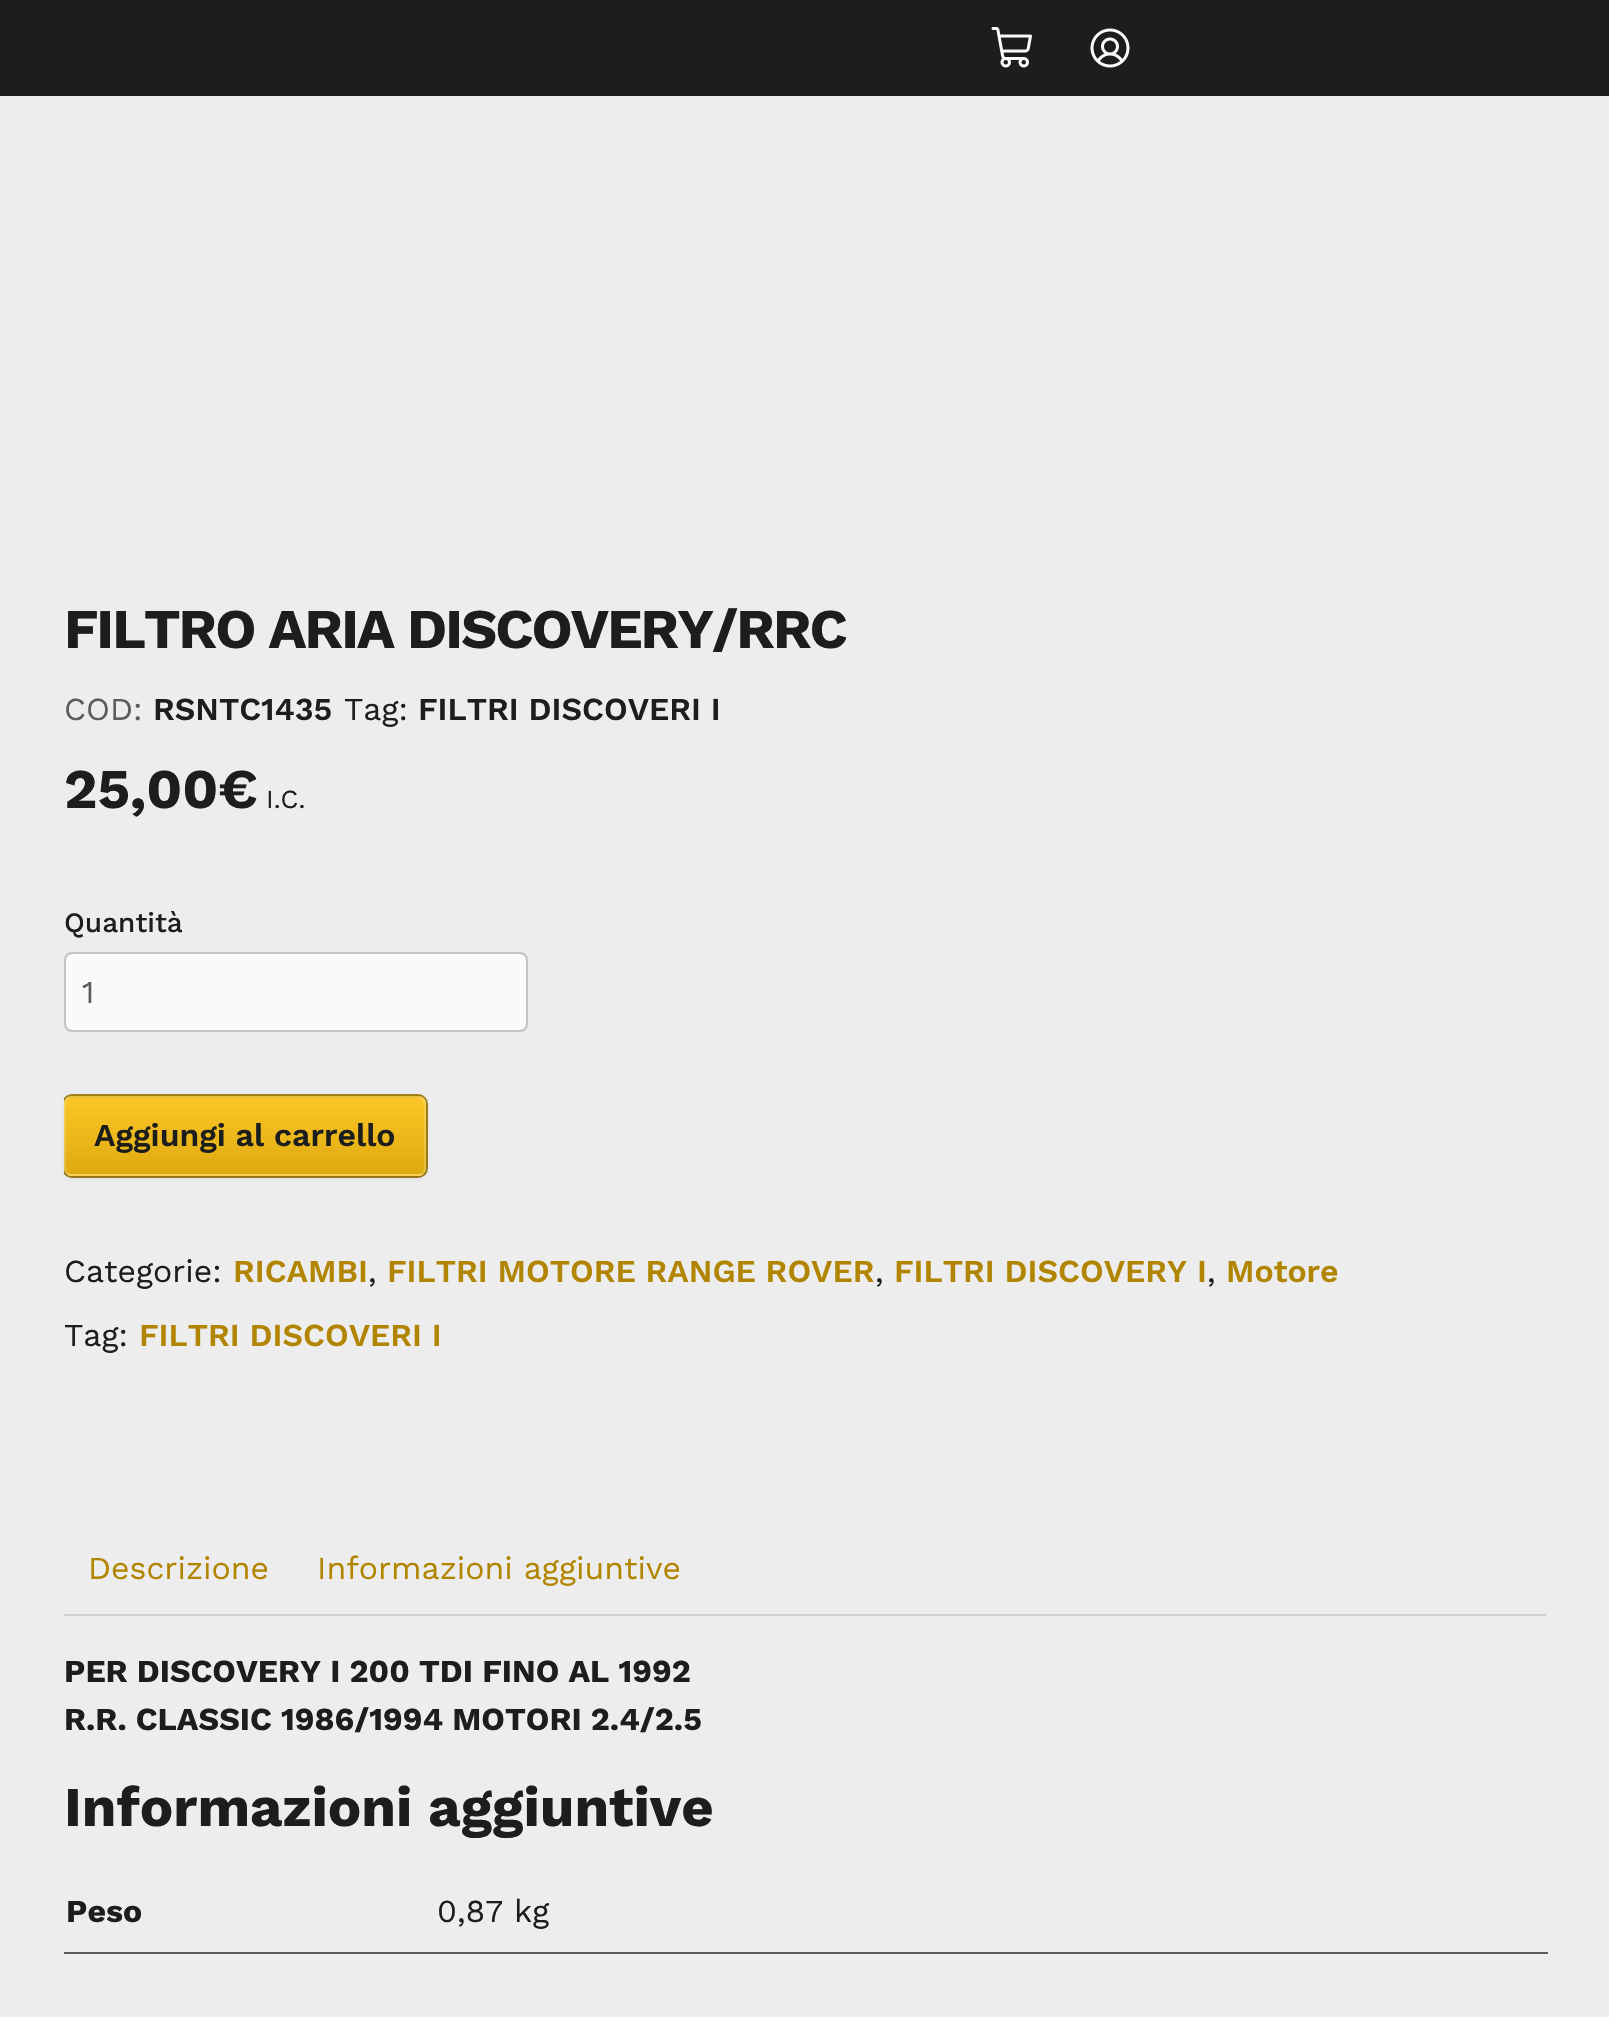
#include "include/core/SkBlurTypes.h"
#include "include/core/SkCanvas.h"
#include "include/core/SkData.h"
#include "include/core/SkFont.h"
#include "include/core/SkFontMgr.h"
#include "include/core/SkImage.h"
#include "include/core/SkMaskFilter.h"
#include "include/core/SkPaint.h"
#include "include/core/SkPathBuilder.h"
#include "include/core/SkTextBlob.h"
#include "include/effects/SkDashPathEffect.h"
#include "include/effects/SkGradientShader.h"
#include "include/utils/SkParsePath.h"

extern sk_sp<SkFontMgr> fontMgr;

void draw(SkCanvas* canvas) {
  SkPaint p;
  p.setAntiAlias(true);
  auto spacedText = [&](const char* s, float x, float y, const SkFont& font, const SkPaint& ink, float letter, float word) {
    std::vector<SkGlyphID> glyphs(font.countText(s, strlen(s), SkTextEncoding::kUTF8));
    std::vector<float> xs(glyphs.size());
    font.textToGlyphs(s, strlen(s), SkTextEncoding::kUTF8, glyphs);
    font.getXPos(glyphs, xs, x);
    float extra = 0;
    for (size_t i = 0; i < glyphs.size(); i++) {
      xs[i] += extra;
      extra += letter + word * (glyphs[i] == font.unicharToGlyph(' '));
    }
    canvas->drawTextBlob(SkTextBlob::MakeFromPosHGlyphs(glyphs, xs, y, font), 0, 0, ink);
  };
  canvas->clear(SkColorSetRGB(237, 237, 237));
  p.setColor(SkColorSetRGB(28, 30, 30));
  canvas->drawRect(SkRect::MakeLTRB(0, 0, 1609, 96), p);
  canvas->drawImageRect(SkImages::DeferredFromEncodedData(SkData::MakeFromFileName("images/1.png")), SkRect::MakeLTRB(991, 27, 1032, 68), SkSamplingOptions());
  canvas->drawImageRect(SkImages::DeferredFromEncodedData(SkData::MakeFromFileName("images/2.png")), SkRect::MakeLTRB(1090, 28, 1130, 68), SkSamplingOptions());
  p.setColor(SkColorSetRGB(250, 250, 250));
  canvas->drawRoundRect(SkRect::MakeLTRB(64, 952, 528, 1032), 8, 8, p);
  p.setStyle(SkPaint::kStroke_Style);
  p.setStrokeWidth(2);
  p.setColor(SkColorSetARGB(64, 28, 30, 30));
  canvas->drawRoundRect(SkRect::MakeLTRB(65, 953, 527, 1031), 7, 7, p);
  canvas->save();
  canvas->clipRect(SkRect::MakeLTRB(64, 0, 1546, 1432));
  p.setColor(SkColorSetRGB(161, 126, 23));
  canvas->drawRoundRect(SkRect::MakeLTRB(63, 1095, 427, 1177), 9, 9, p);
  canvas->restore();
  canvas->save();
  canvas->clipPath(SkPathBuilder(SkPathFillType::kEvenOdd).moveTo(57, 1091).lineTo(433, 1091).lineTo(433, 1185).lineTo(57, 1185).close().moveTo(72, 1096).lineTo(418, 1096).cubicTo(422.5f, 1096, 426, 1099.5f, 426, 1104).lineTo(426, 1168).cubicTo(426, 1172.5f, 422.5f, 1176, 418, 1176).lineTo(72, 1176).cubicTo(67.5f, 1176, 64, 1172.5f, 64, 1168).lineTo(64, 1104).cubicTo(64, 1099.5f, 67.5f, 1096, 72, 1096).close().detach(), true);
  p.setStyle(SkPaint::kFill_Style);
  p.setColor(SkColorSetARGB(26, 0, 0, 0));
  p.setMaskFilter(SkMaskFilter::MakeBlur(kNormal_SkBlurStyle, 2));
  canvas->drawRoundRect(SkRect::MakeLTRB(64, 1098, 426, 1178), 8, 8, p);
  p.setMaskFilter(nullptr);
  canvas->restore();
  canvas->save();
  canvas->clipPath(SkPathBuilder().moveTo(72, 1096).lineTo(418, 1096).cubicTo(422.5f, 1096, 426, 1099.5f, 426, 1104).lineTo(426, 1168).cubicTo(426, 1172.5f, 422.5f, 1176, 418, 1176).lineTo(72, 1176).cubicTo(67.5f, 1176, 64, 1172.5f, 64, 1168).lineTo(64, 1104).cubicTo(64, 1099.5f, 67.5f, 1096, 72, 1096).close().detach(), true);
  {
    const SkColor colors[] = {SkColorSetRGB(222, 170, 16), SkColorSetRGB(252, 198, 38)};
    const float stops[] = {0, 1};
    const SkPoint ends[] = {{245, 1098}, {245, 1022}};
    p.setShader(SkGradientShader::MakeLinear(ends, colors, stops, 2, SkTileMode::kClamp));
    p.setAlpha(255);
  }
  canvas->drawRect(SkRect::MakeLTRB(64, 1096, 426, 1098), p);
  {
    const SkColor colors[] = {SkColorSetRGB(222, 170, 16), SkColorSetRGB(252, 198, 38)};
    const float stops[] = {0, 1};
    const SkPoint ends[] = {{245, 1174}, {245, 1098}};
    p.setShader(SkGradientShader::MakeLinear(ends, colors, stops, 2, SkTileMode::kClamp));
    p.setAlpha(255);
  }
  canvas->drawRect(SkRect::MakeLTRB(64, 1098, 426, 1174), p);
  {
    const SkColor colors[] = {SkColorSetRGB(222, 170, 16), SkColorSetRGB(252, 198, 38)};
    const float stops[] = {0, 1};
    const SkPoint ends[] = {{245, 1250}, {245, 1174}};
    p.setShader(SkGradientShader::MakeLinear(ends, colors, stops, 2, SkTileMode::kClamp));
    p.setAlpha(255);
  }
  canvas->drawRect(SkRect::MakeLTRB(64, 1174, 426, 1176), p);
  canvas->restore();
  p.setStyle(SkPaint::kStroke_Style);
  p.setShader(nullptr);
  p.setColor(SkColorSetARGB(51, 255, 255, 255));
  canvas->drawRoundRect(SkRect::MakeLTRB(65, 1097, 425, 1175), 7, 7, p);
  p.setStyle(SkPaint::kFill_Style);
  p.setColor(SkColorSetRGB(206, 206, 206));
  canvas->drawRect(SkRect::MakeLTRB(64, 1614, 1546, 1616), p);
  p.setColor(SkColorSetRGB(91, 92, 92));
  canvas->drawRect(SkRect::MakeLTRB(64, 1952, 1548, 1954), p);
  SkFont font1(fontMgr->matchFamilyStyle("Work Sans", SkFontStyle::Bold()), 56);
  font1.setSubpixel(true);
  p.setColor(SkColorSetRGB(28, 30, 30));
  spacedText("FILTRO ARIA DISCOVERY/RRC", 64, 648, font1, p, -1.95f, 0);
  SkFont font2(fontMgr->matchFamilyStyle("Work Sans", SkFontStyle::Normal()), 32);
  font2.setSubpixel(true);
  p.setColor(SkColorSetRGB(91, 92, 92));
  canvas->drawString("COD:", 64, 720, font2, p);
  SkFont font3(fontMgr->matchFamilyStyle("Work Sans", SkFontStyle(600, SkFontStyle::kNormal_Width, SkFontStyle::kUpright_Slant)), 32);
  font3.setSubpixel(true);
  p.setColor(SkColorSetRGB(28, 30, 30));
  canvas->drawString("RSNTC1435", 153, 720, font3, p);
  canvas->drawString("Tag:", 344, 720, font2, p);
  canvas->drawString("FILTRI DISCOVERI I", 418, 720, font3, p);
  canvas->drawString("25,00€", 64, 808, font1, p);
  SkFont font4(fontMgr->matchFamilyStyle("Work Sans", SkFontStyle::Normal()), 26);
  font4.setSubpixel(true);
  canvas->drawString("I.C.", 266, 808, font4, p);
  SkFont font5(fontMgr->matchFamilyStyle("Work Sans", SkFontStyle(500, SkFontStyle::kNormal_Width, SkFontStyle::kUpright_Slant)), 28);
  font5.setSubpixel(true);
  canvas->drawString("Quantità", 64, 932, font5, p);
  p.setColor(SkColorSetRGB(91, 92, 92));
  canvas->drawString("1", 82, 1003, font2, p);
  p.setColor(SkColorSetRGB(28, 30, 30));
  canvas->drawString("Aggiungi al carrello", 94, 1146, font3, p);
  canvas->drawString("Categorie:", 64, 1282, font2, p);
  p.setColor(SkColorSetRGB(178, 133, 1));
  canvas->drawString("RICAMBI", 233, 1282, font3, p);
  p.setColor(SkColorSetRGB(28, 30, 30));
  canvas->drawString(",", 368, 1282, font2, p);
  p.setColor(SkColorSetRGB(178, 133, 1));
  canvas->drawString("FILTRI MOTORE RANGE ROVER", 387, 1282, font3, p);
  p.setColor(SkColorSetRGB(28, 30, 30));
  canvas->drawString(",", 875, 1282, font2, p);
  p.setColor(SkColorSetRGB(178, 133, 1));
  canvas->drawString("FILTRI DISCOVERY I", 894, 1282, font3, p);
  p.setColor(SkColorSetRGB(28, 30, 30));
  canvas->drawString(",", 1207, 1282, font2, p);
  p.setColor(SkColorSetRGB(178, 133, 1));
  canvas->drawString("Motore", 1226, 1282, font3, p);
  p.setColor(SkColorSetRGB(28, 30, 30));
  canvas->drawString("Tag:", 64, 1346, font2, p);
  p.setColor(SkColorSetRGB(178, 133, 1));
  canvas->drawString("FILTRI DISCOVERI I", 139, 1346, font3, p);
  canvas->drawString("Descrizione", 88, 1579, font2, p);
  canvas->drawString("Informazioni aggiuntive", 317, 1579, font2, p);
  SkFont font6(fontMgr->matchFamilyStyle("Work Sans", SkFontStyle::Bold()), 32);
  font6.setSubpixel(true);
  p.setColor(SkColorSetRGB(28, 30, 30));
  canvas->drawString("PER DISCOVERY I 200 TDI FINO AL 1992", 64, 1682, font6, p);
  canvas->drawString("R.R. CLASSIC 1986/1994 MOTORI 2.4/2.5", 64, 1730, font6, p);
  canvas->drawString("Informazioni aggiuntive", 64, 1826, font1, p);
  canvas->drawString("Peso", 66, 1922, font6, p);
  canvas->drawString("0,87 kg", 437, 1922, font2, p);
}
